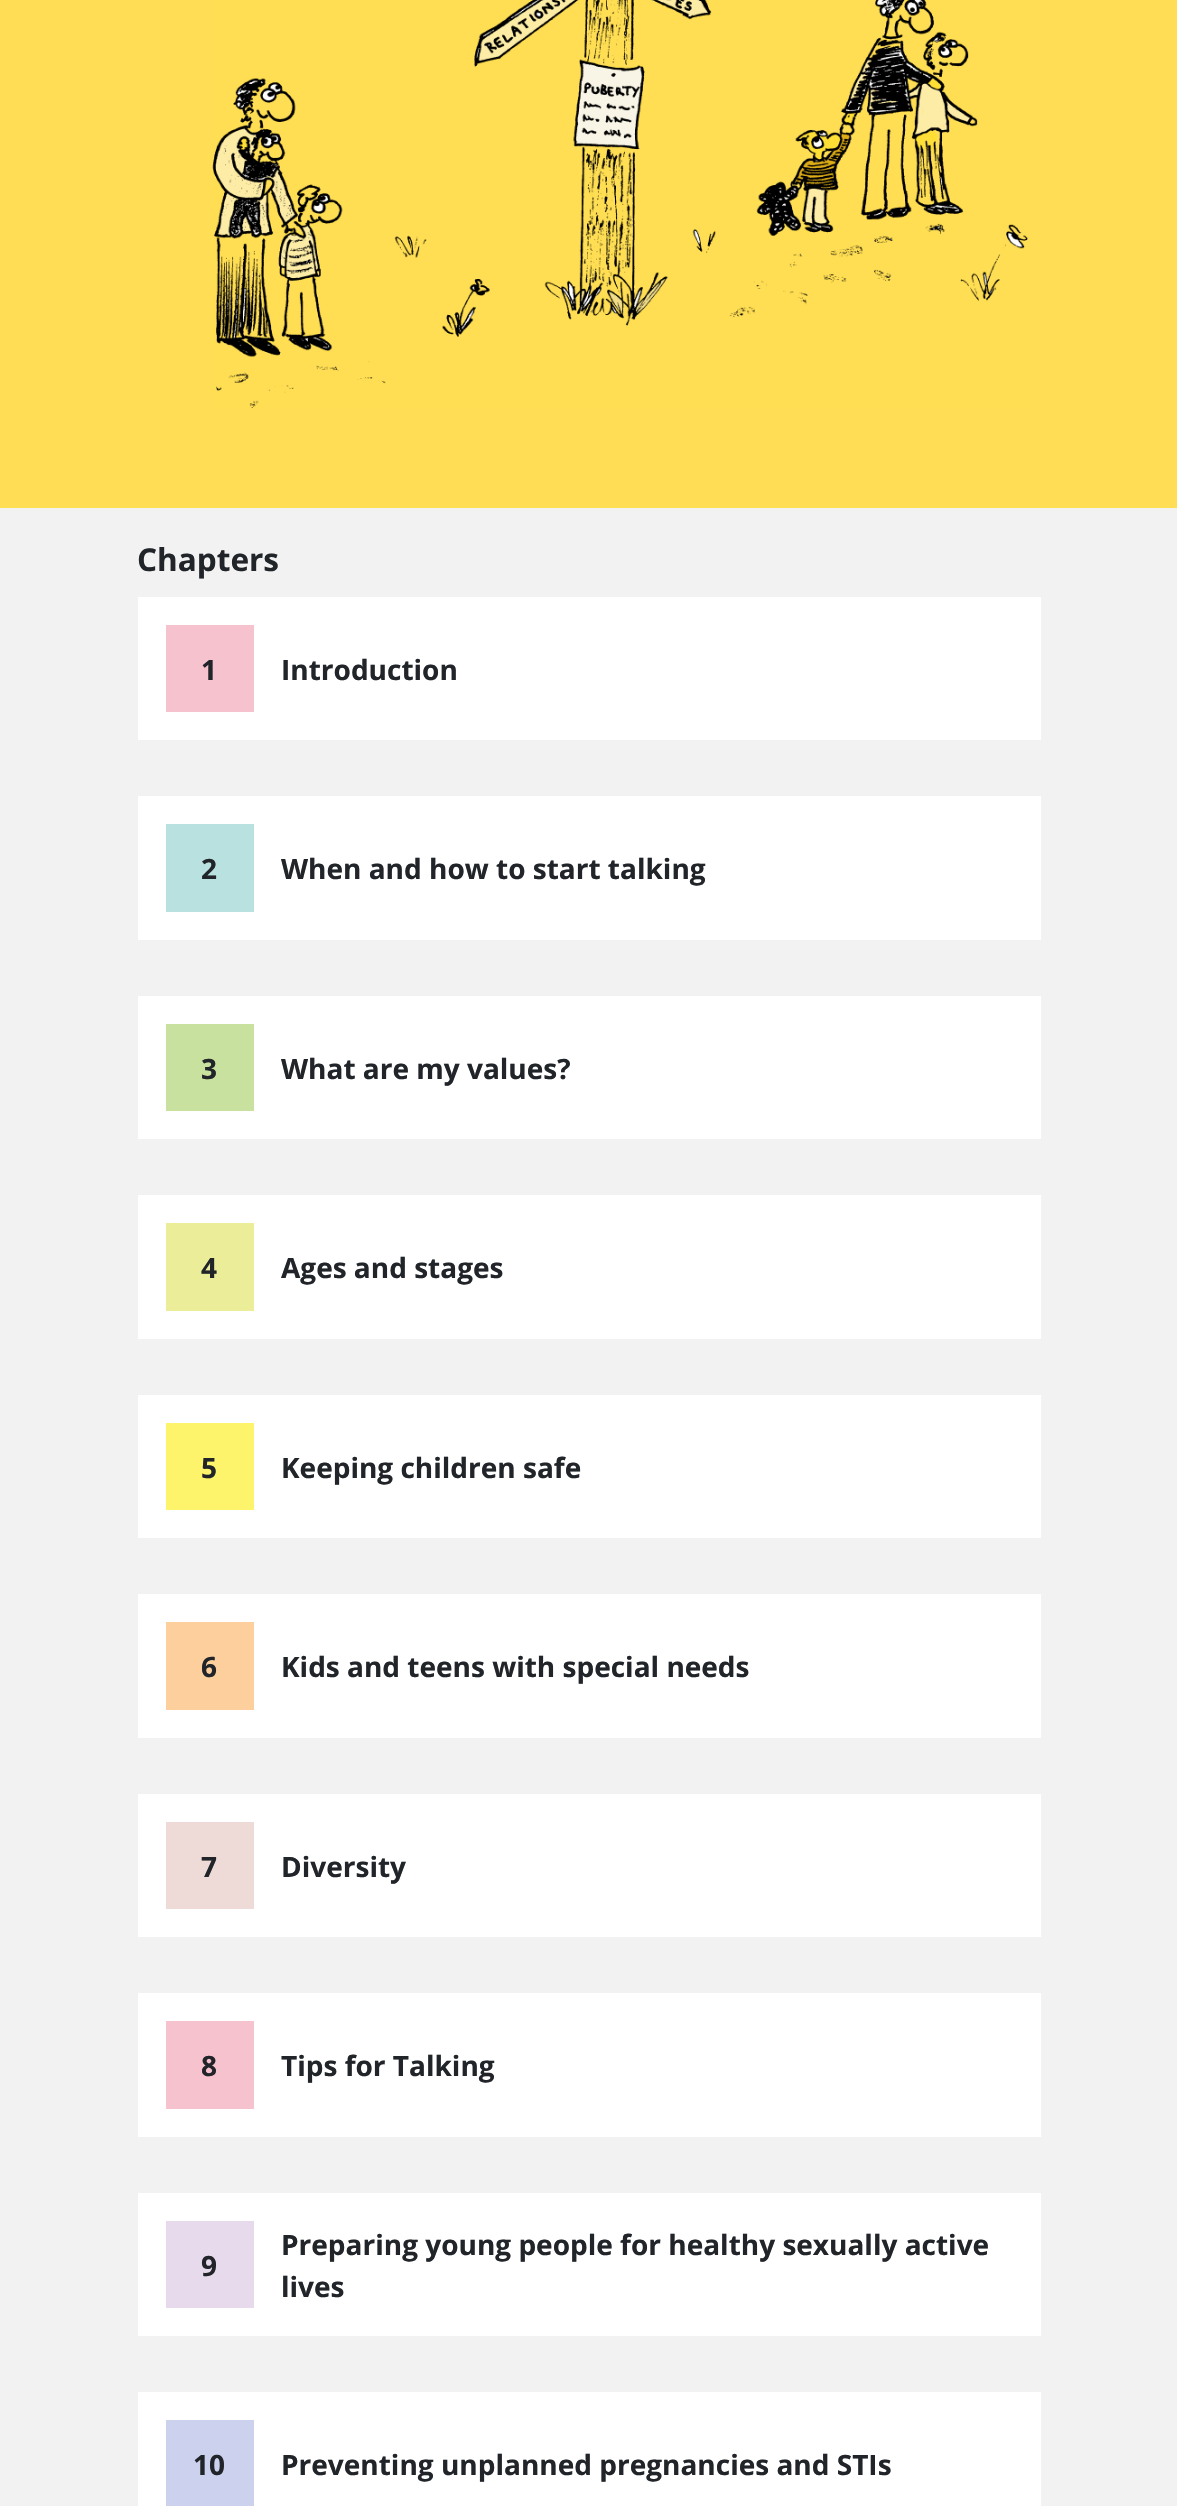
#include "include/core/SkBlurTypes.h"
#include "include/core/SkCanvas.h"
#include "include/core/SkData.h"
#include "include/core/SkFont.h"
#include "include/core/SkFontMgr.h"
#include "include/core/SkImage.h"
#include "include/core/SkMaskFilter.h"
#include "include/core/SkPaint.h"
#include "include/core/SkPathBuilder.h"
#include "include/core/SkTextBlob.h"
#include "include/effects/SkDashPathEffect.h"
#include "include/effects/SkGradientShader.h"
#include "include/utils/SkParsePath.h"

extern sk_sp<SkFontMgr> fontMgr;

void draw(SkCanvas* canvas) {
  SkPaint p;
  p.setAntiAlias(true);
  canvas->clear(SkColorSetRGB(255, 221, 85));
  canvas->drawImageRect(SkImages::DeferredFromEncodedData(SkData::MakeFromFileName("images/1.png")), SkRect::MakeLTRB(212, 0, 1028, 408), SkSamplingOptions());
  p.setColor(SkColorSetRGB(242, 242, 242));
  canvas->drawRect(SkRect::MakeLTRB(0, 508, 1177, 2506), p);
  p.setColor(SK_ColorWHITE);
  canvas->drawRect(SkRect::MakeLTRB(138, 597, 1041, 740), p);
  p.setColor(SkColorSetRGB(245, 194, 205));
  canvas->drawRect(SkRect::MakeLTRB(166, 625, 254, 712), p);
  p.setColor(SK_ColorWHITE);
  canvas->drawRect(SkRect::MakeLTRB(138, 796, 1041, 940), p);
  p.setColor(SkColorSetRGB(185, 225, 223));
  canvas->drawRect(SkRect::MakeLTRB(166, 824, 254, 912), p);
  p.setColor(SK_ColorWHITE);
  canvas->drawRect(SkRect::MakeLTRB(138, 996, 1041, 1139), p);
  p.setColor(SkColorSetRGB(200, 225, 159));
  canvas->drawRect(SkRect::MakeLTRB(166, 1024, 254, 1111), p);
  p.setColor(SK_ColorWHITE);
  canvas->drawRect(SkRect::MakeLTRB(138, 1195, 1041, 1339), p);
  p.setColor(SkColorSetRGB(236, 237, 153));
  canvas->drawRect(SkRect::MakeLTRB(166, 1223, 254, 1311), p);
  p.setColor(SK_ColorWHITE);
  canvas->drawRect(SkRect::MakeLTRB(138, 1395, 1041, 1538), p);
  p.setColor(SkColorSetRGB(254, 244, 107));
  canvas->drawRect(SkRect::MakeLTRB(166, 1423, 254, 1510), p);
  p.setColor(SK_ColorWHITE);
  canvas->drawRect(SkRect::MakeLTRB(138, 1594, 1041, 1738), p);
  p.setColor(SkColorSetRGB(253, 207, 156));
  canvas->drawRect(SkRect::MakeLTRB(166, 1622, 254, 1710), p);
  p.setColor(SK_ColorWHITE);
  canvas->drawRect(SkRect::MakeLTRB(138, 1794, 1041, 1937), p);
  p.setColor(SkColorSetRGB(238, 218, 214));
  canvas->drawRect(SkRect::MakeLTRB(166, 1822, 254, 1909), p);
  p.setColor(SK_ColorWHITE);
  canvas->drawRect(SkRect::MakeLTRB(138, 1993, 1041, 2137), p);
  p.setColor(SkColorSetRGB(245, 194, 205));
  canvas->drawRect(SkRect::MakeLTRB(166, 2021, 254, 2109), p);
  p.setColor(SK_ColorWHITE);
  canvas->drawRect(SkRect::MakeLTRB(138, 2193, 1041, 2336), p);
  p.setColor(SkColorSetRGB(232, 218, 237));
  canvas->drawRect(SkRect::MakeLTRB(166, 2221, 254, 2308), p);
  p.setColor(SK_ColorWHITE);
  canvas->drawRect(SkRect::MakeLTRB(138, 2392, 1041, 2506), p);
  p.setColor(SkColorSetRGB(204, 210, 237));
  canvas->drawRect(SkRect::MakeLTRB(166, 2420, 254, 2506), p);
  SkFont font1(fontMgr->matchFamilyStyle("Open Sans", SkFontStyle::Bold()), 31.5f);
  font1.setSubpixel(true);
  p.setColor(SkColorSetRGB(33, 37, 41));
  canvas->drawString("Chapters", 137, 571, font1, p);
  SkFont font2(fontMgr->matchFamilyStyle("Open Sans", SkFontStyle::Bold()), 28);
  font2.setSubpixel(true);
  canvas->drawString("1", 201, 680, font2, p);
  canvas->drawString("Introduction", 281, 680, font2, p);
  canvas->drawString("2", 201, 879, font2, p);
  canvas->drawString("When and how to start talking", 281, 879, font2, p);
  canvas->drawString("3", 201, 1079, font2, p);
  canvas->drawString("What are my values?", 281, 1079, font2, p);
  canvas->drawString("4", 201, 1278, font2, p);
  canvas->drawString("Ages and stages", 281, 1278, font2, p);
  canvas->drawString("5", 201, 1478, font2, p);
  canvas->drawString("Keeping children safe", 281, 1478, font2, p);
  canvas->drawString("6", 201, 1677, font2, p);
  canvas->drawString("Kids and teens with special needs", 281, 1677, font2, p);
  canvas->drawString("7", 201, 1877, font2, p);
  canvas->drawString("Diversity", 281, 1877, font2, p);
  canvas->drawString("8", 201, 2076, font2, p);
  canvas->drawString("Tips for Talking", 281, 2076, font2, p);
  canvas->drawString("9", 201, 2276, font2, p);
  canvas->drawString("Preparing young people for healthy sexually active", 281, 2255, font2, p);
  canvas->drawString("lives", 281, 2297, font2, p);
  canvas->drawString("10", 193, 2475, font2, p);
  canvas->drawString("Preventing unplanned pregnancies and STIs", 281, 2475, font2, p);
}
